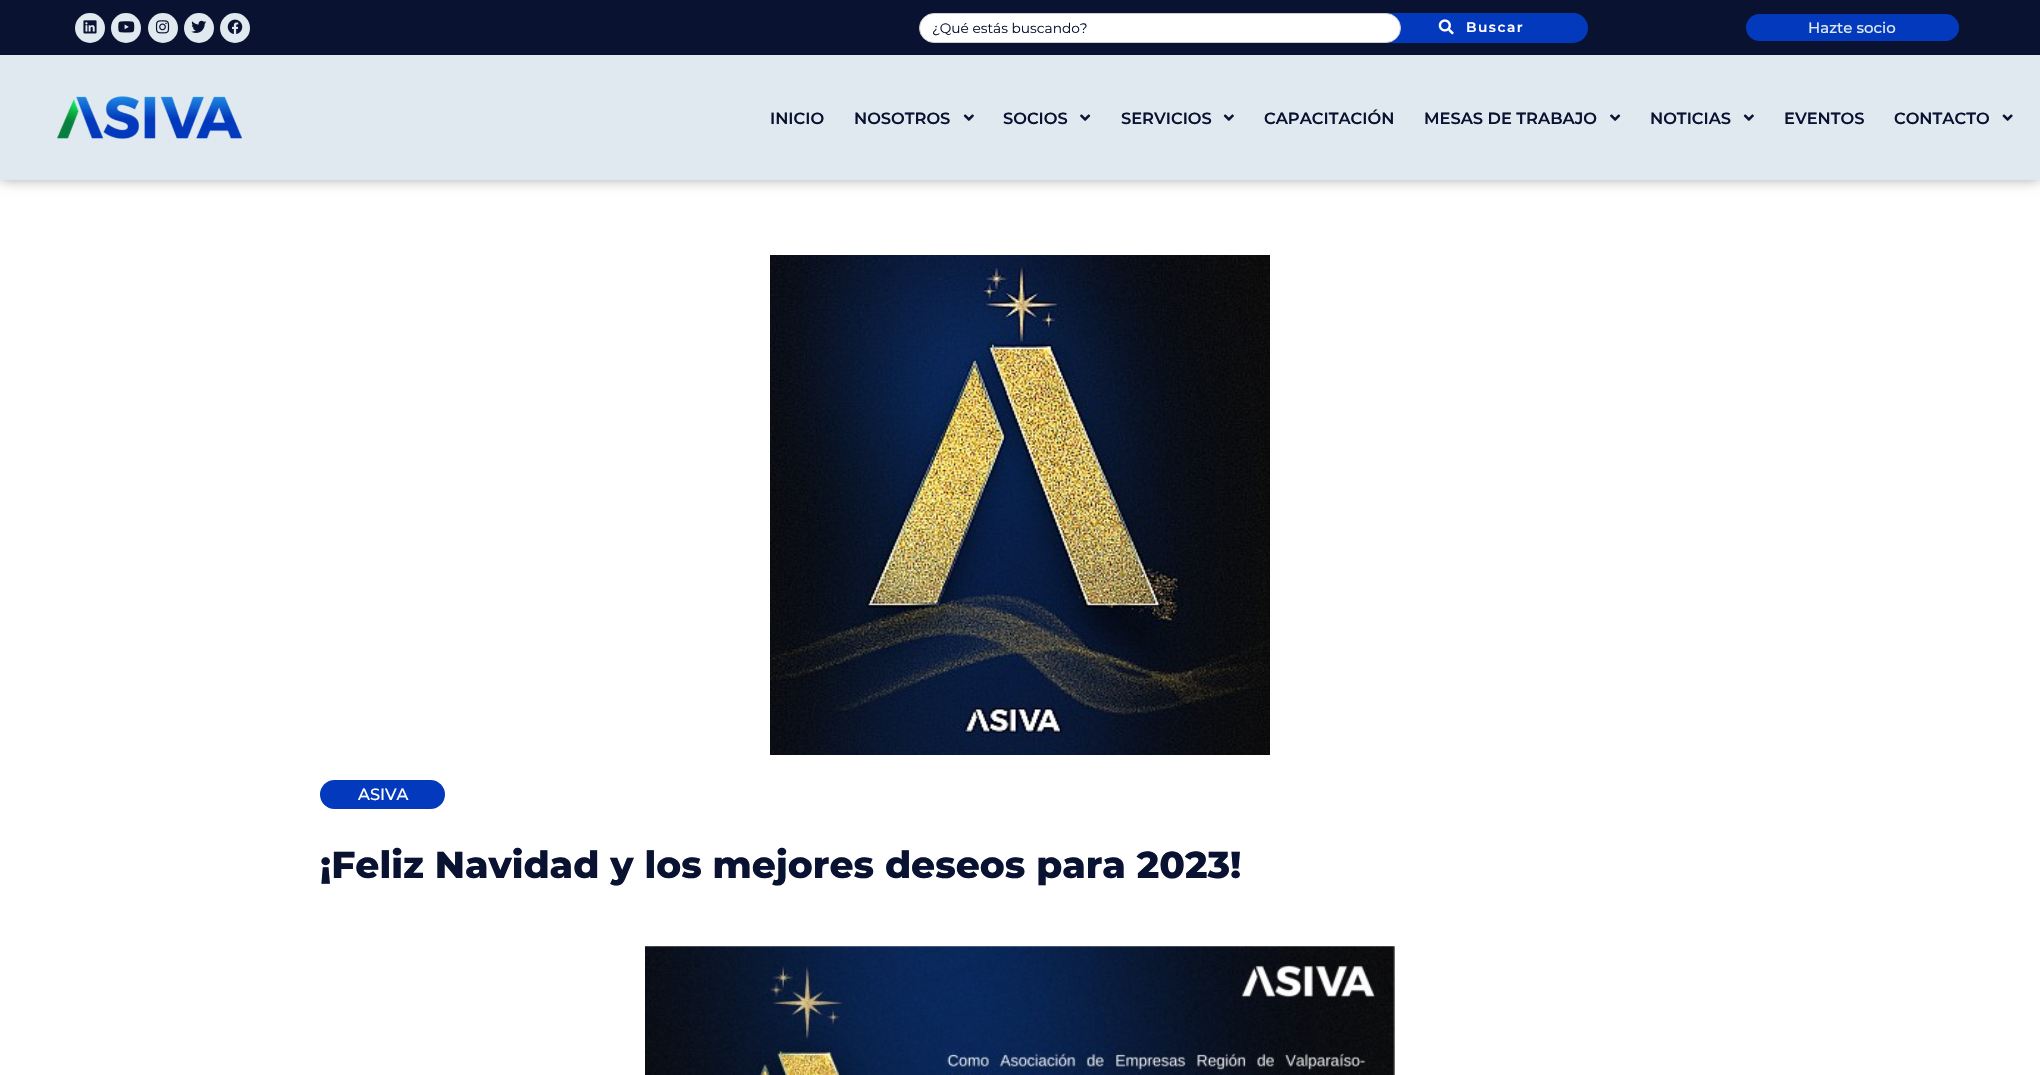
#include "include/core/SkBlurTypes.h"
#include "include/core/SkCanvas.h"
#include "include/core/SkData.h"
#include "include/core/SkFont.h"
#include "include/core/SkFontMgr.h"
#include "include/core/SkImage.h"
#include "include/core/SkMaskFilter.h"
#include "include/core/SkPaint.h"
#include "include/core/SkPathBuilder.h"
#include "include/core/SkTextBlob.h"
#include "include/effects/SkDashPathEffect.h"
#include "include/effects/SkGradientShader.h"
#include "include/utils/SkParsePath.h"

extern sk_sp<SkFontMgr> fontMgr;

void draw(SkCanvas* canvas) {
  SkPaint p;
  p.setAntiAlias(true);
  auto spacedText = [&](const char* s, float x, float y, const SkFont& font, const SkPaint& ink, float letter, float word) {
    std::vector<SkGlyphID> glyphs(font.countText(s, strlen(s), SkTextEncoding::kUTF8));
    std::vector<float> xs(glyphs.size());
    font.textToGlyphs(s, strlen(s), SkTextEncoding::kUTF8, glyphs);
    font.getXPos(glyphs, xs, x);
    float extra = 0;
    for (size_t i = 0; i < glyphs.size(); i++) {
      xs[i] += extra;
      extra += letter + word * (glyphs[i] == font.unicharToGlyph(' '));
    }
    canvas->drawTextBlob(SkTextBlob::MakeFromPosHGlyphs(glyphs, xs, y, font), 0, 0, ink);
  };
  canvas->clear(SK_ColorWHITE);
  p.setColor(SkColorSetARGB(84, 0, 0, 0));
  p.setMaskFilter(SkMaskFilter::MakeBlur(kNormal_SkBlurStyle, 6));
  canvas->drawRect(SkRect::MakeLTRB(0, 0, 2040, 180), p);
  p.setMaskFilter(nullptr);
  p.setColor(SkColorSetRGB(9, 18, 49));
  canvas->drawRect(SkRect::MakeLTRB(0, 0, 2040, 55), p);
  p.setColor(SkColorSetRGB(223, 233, 239));
  canvas->drawCircle(90, 28, 15, p);
  canvas->drawImageRect(SkImages::DeferredFromEncodedData(SkData::MakeFromFileName("images/1.png")), SkRect::MakeLTRB(83, 20, 97, 34), SkSamplingOptions());
  canvas->drawCircle(126, 28, 15, p);
  canvas->drawImageRect(SkImages::DeferredFromEncodedData(SkData::MakeFromFileName("images/2.png")), SkRect::MakeLTRB(118, 21, 135, 33), SkSamplingOptions());
  canvas->drawCircle(163, 28, 15, p);
  canvas->drawImageRect(SkImages::DeferredFromEncodedData(SkData::MakeFromFileName("images/3.png")), SkRect::MakeLTRB(155, 20, 170, 34), SkSamplingOptions());
  canvas->drawCircle(199, 28, 15, p);
  canvas->drawImageRect(SkImages::DeferredFromEncodedData(SkData::MakeFromFileName("images/4.png")), SkRect::MakeLTRB(191, 20, 207, 33), SkSamplingOptions());
  canvas->drawCircle(235, 28, 15, p);
  canvas->drawImageRect(SkImages::DeferredFromEncodedData(SkData::MakeFromFileName("images/5.png")), SkRect::MakeLTRB(227, 19, 243, 34), SkSamplingOptions());
  p.setColor(SkColorSetRGB(3, 57, 188));
  canvas->drawRoundRect(SkRect::MakeLTRB(1376, 13, 1588, 43), 15, 15, p);
  p.setColor(SK_ColorWHITE);
  canvas->drawRoundRect(SkRect::MakeLTRB(919.5f, 13.5f, 1400.5f, 42.5f), 14.5f, 14.5f, p);
  p.setStyle(SkPaint::kStroke_Style);
  p.setStrokeWidth(1);
  p.setColor(SkColorSetRGB(205, 205, 205));
  canvas->drawRoundRect(SkRect::MakeLTRB(919.5f, 13.5f, 1400.5f, 42.5f), 14.5f, 14.5f, p);
  canvas->drawImageRect(SkImages::DeferredFromEncodedData(SkData::MakeFromFileName("images/6.png")), SkRect::MakeLTRB(1438, 19, 1454, 35), SkSamplingOptions());
  p.setStyle(SkPaint::kFill_Style);
  p.setColor(SkColorSetRGB(3, 57, 188));
  canvas->drawRoundRect(SkRect::MakeLTRB(1746, 14, 1959, 41), 13.5f, 13.5f, p);
  p.setColor(SkColorSetRGB(223, 233, 239));
  canvas->drawRect(SkRect::MakeLTRB(0, 55, 2040, 180), p);
  canvas->drawImageRect(SkImages::DeferredFromEncodedData(SkData::MakeFromFileName("images/7.png")), SkRect::MakeLTRB(57, 96, 242, 140), SkSamplingOptions());
  canvas->drawImageRect(SkImages::DeferredFromEncodedData(SkData::MakeFromFileName("images/8.png")), SkRect::MakeLTRB(963, 114, 974, 121), SkSamplingOptions());
  canvas->drawImageRect(SkImages::DeferredFromEncodedData(SkData::MakeFromFileName("images/9.png")), SkRect::MakeLTRB(1080, 114, 1091, 121), SkSamplingOptions());
  canvas->drawImageRect(SkImages::DeferredFromEncodedData(SkData::MakeFromFileName("images/8.png")), SkRect::MakeLTRB(1223, 114, 1234, 121), SkSamplingOptions());
  canvas->drawImageRect(SkImages::DeferredFromEncodedData(SkData::MakeFromFileName("images/9.png")), SkRect::MakeLTRB(1610, 114, 1621, 121), SkSamplingOptions());
  canvas->drawImageRect(SkImages::DeferredFromEncodedData(SkData::MakeFromFileName("images/8.png")), SkRect::MakeLTRB(1743, 114, 1754, 121), SkSamplingOptions());
  canvas->drawImageRect(SkImages::DeferredFromEncodedData(SkData::MakeFromFileName("images/10.png")), SkRect::MakeLTRB(2002, 114, 2013, 121), SkSamplingOptions());
  canvas->drawImageRect(SkImages::DeferredFromEncodedData(SkData::MakeFromFileName("images/11.png")), SkRect::MakeLTRB(770, 255, 1270, 755), SkSamplingOptions());
  p.setColor(SkColorSetRGB(3, 57, 188));
  canvas->drawRoundRect(SkRect::MakeLTRB(320, 780, 445, 809), 14.5f, 14.5f, p);
  canvas->drawImageRect(SkImages::DeferredFromEncodedData(SkData::MakeFromFileName("images/12.png")), SkRect::MakeLTRB(645, 946, 1395, 1075), SkSamplingOptions());
  SkFont font1(fontMgr->matchFamilyStyle("Montserrat", SkFontStyle::Normal()), 13.75f);
  font1.setSubpixel(true);
  p.setColor(SkColorSetRGB(9, 18, 49));
  canvas->drawString("¿Qué estás buscando?", 932, 33, font1, p);
  SkFont font2(fontMgr->matchFamilyStyle("Montserrat", SkFontStyle(600, SkFontStyle::kNormal_Width, SkFontStyle::kUpright_Slant)), 13.75f);
  font2.setSubpixel(true);
  p.setColor(SK_ColorWHITE);
  spacedText("Buscar", 1466, 32, font2, p, 1.5f, 0);
  SkFont font3(fontMgr->matchFamilyStyle("Montserrat", SkFontStyle(500, SkFontStyle::kNormal_Width, SkFontStyle::kUpright_Slant)), 15);
  font3.setSubpixel(true);
  p.setColor(SkColorSetRGB(223, 233, 239));
  canvas->drawString("Hazte socio", 1808, 33, font3, p);
  SkFont font4(fontMgr->matchFamilyStyle("Montserrat", SkFontStyle(600, SkFontStyle::kNormal_Width, SkFontStyle::kUpright_Slant)), 16.25f);
  font4.setSubpixel(true);
  p.setColor(SkColorSetRGB(9, 18, 49));
  canvas->drawString("INICIO", 770, 124, font4, p);
  canvas->drawString("NOSOTROS", 854, 124, font4, p);
  canvas->drawString("SOCIOS", 1003, 124, font4, p);
  canvas->drawString("SERVICIOS", 1121, 124, font4, p);
  canvas->drawString("CAPACITACIÓN", 1264, 124, font4, p);
  canvas->drawString("MESAS DE TRABAJO", 1424, 124, font4, p);
  canvas->drawString("NOTICIAS", 1650, 124, font4, p);
  canvas->drawString("EVENTOS", 1784, 124, font4, p);
  canvas->drawString("CONTACTO", 1894, 124, font4, p);
  SkFont font5(fontMgr->matchFamilyStyle("Montserrat", SkFontStyle(500, SkFontStyle::kNormal_Width, SkFontStyle::kUpright_Slant)), 16.25f);
  font5.setSubpixel(true);
  p.setColor(SK_ColorWHITE);
  canvas->drawString("ASIVA", 358, 800, font5, p);
  SkFont font6(fontMgr->matchFamilyStyle("Montserrat", SkFontStyle(800, SkFontStyle::kNormal_Width, SkFontStyle::kUpright_Slant)), 37.5f);
  font6.setSubpixel(true);
  p.setColor(SkColorSetRGB(9, 18, 49));
  canvas->drawString("¡Feliz Navidad y los mejores deseos para 2023!", 320, 878, font6, p);
}
